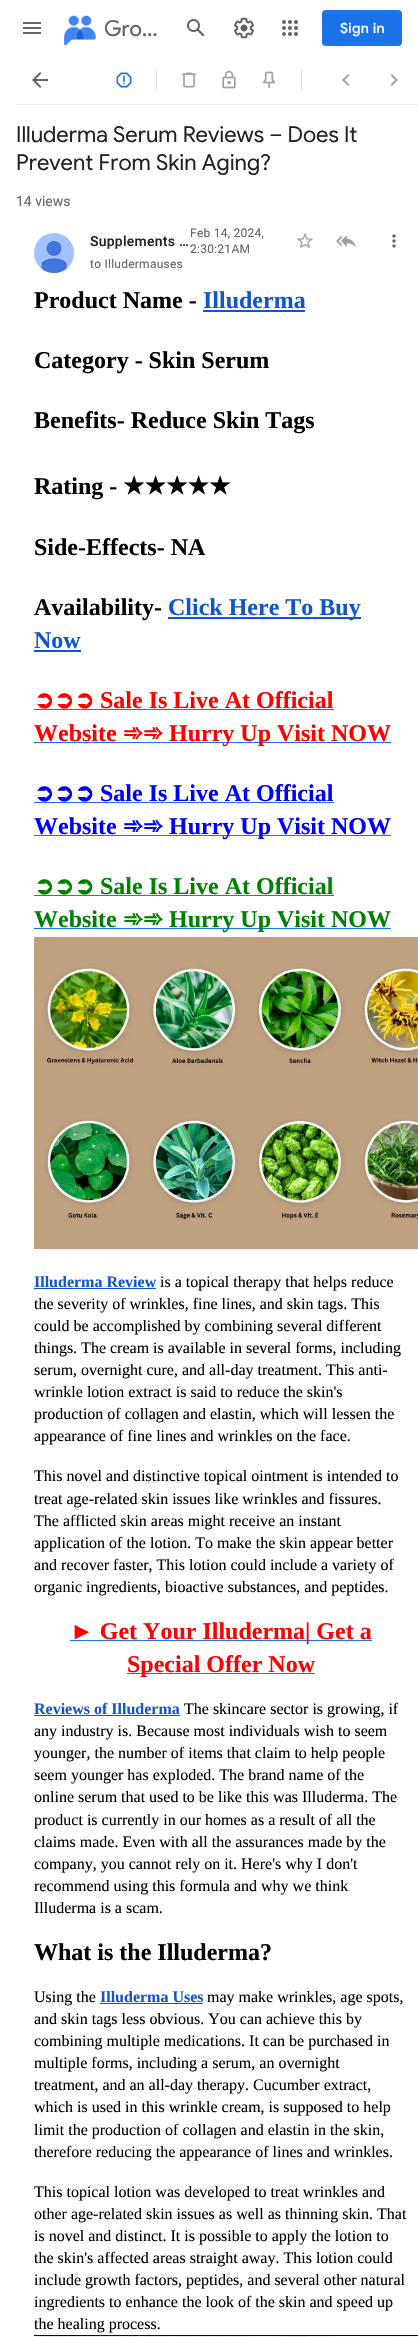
#include "include/core/SkBlurTypes.h"
#include "include/core/SkCanvas.h"
#include "include/core/SkData.h"
#include "include/core/SkFont.h"
#include "include/core/SkFontMgr.h"
#include "include/core/SkImage.h"
#include "include/core/SkMaskFilter.h"
#include "include/core/SkPaint.h"
#include "include/core/SkPathBuilder.h"
#include "include/core/SkTextBlob.h"
#include "include/effects/SkDashPathEffect.h"
#include "include/effects/SkGradientShader.h"
#include "include/utils/SkParsePath.h"

extern sk_sp<SkFontMgr> fontMgr;

void draw(SkCanvas* canvas) {
  SkPaint p;
  p.setAntiAlias(true);
  auto spacedText = [&](const char* s, float x, float y, const SkFont& font, const SkPaint& ink, float letter, float word) {
    std::vector<SkGlyphID> glyphs(font.countText(s, strlen(s), SkTextEncoding::kUTF8));
    std::vector<float> xs(glyphs.size());
    font.textToGlyphs(s, strlen(s), SkTextEncoding::kUTF8, glyphs);
    font.getXPos(glyphs, xs, x);
    float extra = 0;
    for (size_t i = 0; i < glyphs.size(); i++) {
      xs[i] += extra;
      extra += letter + word * (glyphs[i] == font.unicharToGlyph(' '));
    }
    canvas->drawTextBlob(SkTextBlob::MakeFromPosHGlyphs(glyphs, xs, y, font), 0, 0, ink);
  };
  canvas->clear(SK_ColorWHITE);
  canvas->drawImageRect(SkImages::DeferredFromEncodedData(SkData::MakeFromFileName("images/1.png")), SkRect::MakeLTRB(23, 22, 41, 34), SkSamplingOptions());
  canvas->drawImageRect(SkImages::DeferredFromEncodedData(SkData::MakeFromFileName("images/2.png")), SkRect::MakeLTRB(64, 15, 96, 46), SkSamplingOptions());
  canvas->drawImageRect(SkImages::DeferredFromEncodedData(SkData::MakeFromFileName("images/3.png")), SkRect::MakeLTRB(187, 19, 205, 37), SkSamplingOptions());
  canvas->drawImageRect(SkImages::DeferredFromEncodedData(SkData::MakeFromFileName("images/4.png")), SkRect::MakeLTRB(234, 17, 254, 39), SkSamplingOptions());
  canvas->drawImageRect(SkImages::DeferredFromEncodedData(SkData::MakeFromFileName("images/5.png")), SkRect::MakeLTRB(282, 20, 298, 36), SkSamplingOptions());
  p.setColor(SkColorSetRGB(26, 115, 232));
  canvas->drawRoundRect(SkRect::MakeLTRB(322, 10, 402, 46), 4, 4, p);
  p.setColor(SkColorSetRGB(232, 234, 237));
  canvas->drawRect(SkRect::MakeLTRB(16, 104, 418, 105), p);
  canvas->drawImageRect(SkImages::DeferredFromEncodedData(SkData::MakeFromFileName("images/6.png")), SkRect::MakeLTRB(32, 72, 48, 88), SkSamplingOptions());
  canvas->drawImageRect(SkImages::DeferredFromEncodedData(SkData::MakeFromFileName("images/7.png")), SkRect::MakeLTRB(116, 72, 132, 88), SkSamplingOptions());
  p.setColor(SkColorSetRGB(221, 221, 221));
  canvas->drawRect(SkRect::MakeLTRB(156, 70, 157, 90), p);
  canvas->drawImageRect(SkImages::DeferredFromEncodedData(SkData::MakeFromFileName("images/8.png")), SkRect::MakeLTRB(182, 72, 196, 88), SkSamplingOptions());
  canvas->drawImageRect(SkImages::DeferredFromEncodedData(SkData::MakeFromFileName("images/9.png")), SkRect::MakeLTRB(222, 70, 236, 89), SkSamplingOptions());
  canvas->drawImageRect(SkImages::DeferredFromEncodedData(SkData::MakeFromFileName("images/10.png")), SkRect::MakeLTRB(263, 71, 275, 89), SkSamplingOptions());
  canvas->drawRect(SkRect::MakeLTRB(301, 70, 302, 90), p);
  canvas->drawImageRect(SkImages::DeferredFromEncodedData(SkData::MakeFromFileName("images/11.png")), SkRect::MakeLTRB(342, 74, 350, 86), SkSamplingOptions());
  canvas->drawImageRect(SkImages::DeferredFromEncodedData(SkData::MakeFromFileName("images/12.png")), SkRect::MakeLTRB(390, 74, 398, 86), SkSamplingOptions());
  canvas->drawImageRect(SkImages::DeferredFromEncodedData(SkData::MakeFromFileName("images/13.png")), SkRect::MakeLTRB(296, 233, 314, 249), SkSamplingOptions());
  canvas->drawImageRect(SkImages::DeferredFromEncodedData(SkData::MakeFromFileName("images/14.png")), SkRect::MakeLTRB(336, 235, 356, 248), SkSamplingOptions());
  canvas->drawImageRect(SkImages::DeferredFromEncodedData(SkData::MakeFromFileName("images/15.png")), SkRect::MakeLTRB(392, 234, 396, 248), SkSamplingOptions());
  p.setColor(SkColorSetRGB(17, 85, 204));
  canvas->drawRect(SkRect::MakeLTRB(203, 310, 305, 312), p);
  canvas->drawRect(SkRect::MakeLTRB(168, 617, 361, 619), p);
  canvas->drawRect(SkRect::MakeLTRB(34, 650, 81, 652), p);
  p.setColor(SkColorSetRGB(26, 115, 232));
  canvas->drawRect(SkRect::MakeLTRB(34, 709, 334, 710), p);
  canvas->drawRect(SkRect::MakeLTRB(34, 742, 391, 743), p);
  canvas->drawRect(SkRect::MakeLTRB(34, 802, 334, 803), p);
  canvas->drawRect(SkRect::MakeLTRB(34, 835, 391, 836), p);
  canvas->drawRect(SkRect::MakeLTRB(34, 895, 334, 896), p);
  canvas->drawRect(SkRect::MakeLTRB(34, 928, 391, 929), p);
  canvas->drawImageRect(SkImages::DeferredFromEncodedData(SkData::MakeFromFileName("images/16.png")), SkRect::MakeLTRB(34, 937, 418, 1249), SkSamplingOptions());
  p.setColor(SkColorSetRGB(17, 85, 204));
  canvas->drawRect(SkRect::MakeLTRB(34, 1288, 156, 1289), p);
  p.setColor(SkColorSetRGB(26, 115, 232));
  canvas->drawRect(SkRect::MakeLTRB(70, 1640, 372, 1641), p);
  canvas->drawRect(SkRect::MakeLTRB(127, 1673, 315, 1674), p);
  p.setColor(SkColorSetRGB(17, 85, 204));
  canvas->drawRect(SkRect::MakeLTRB(34, 1715, 180, 1716), p);
  canvas->drawRect(SkRect::MakeLTRB(100, 2003, 203, 2004), p);
  canvas->drawImageRect(SkImages::DeferredFromEncodedData(SkData::MakeFromFileName("images/17.png")), SkRect::MakeLTRB(34, 2335, 418, 2337), SkSamplingOptions());
  canvas->drawImageRect(SkImages::DeferredFromEncodedData(SkData::MakeFromFileName("images/18.png")), SkRect::MakeLTRB(34, 233, 74, 273), SkSamplingOptions());
  SkFont font1(fontMgr->matchFamilyStyle("Product Sans", SkFontStyle::Normal()), 22);
  font1.setSubpixel(true);
  p.setColor(SkColorSetRGB(95, 99, 104));
  canvas->drawString("Gro…", 104, 36, font1, p);
  SkFont font2(fontMgr->matchFamilyStyle("Google Sans", SkFontStyle(500, SkFontStyle::kNormal_Width, SkFontStyle::kUpright_Slant)), 14);
  font2.setSubpixel(true);
  p.setColor(SK_ColorWHITE);
  spacedText("Sign in", 340, 33, font2, p, 0.25f, 0);
  SkFont font3(fontMgr->matchFamilyStyle("Google Sans", SkFontStyle::Normal()), 22);
  font3.setSubpixel(true);
  p.setColor(SkColorSetRGB(32, 33, 36));
  canvas->drawString("Illuderma Serum Reviews – Does It", 16, 142, font3, p);
  canvas->drawString("Prevent From Skin Aging?", 16, 170, font3, p);
  SkFont font4(fontMgr->matchFamilyStyle("Roboto", SkFontStyle::Normal()), 14);
  font4.setSubpixel(true);
  p.setColor(SkColorSetRGB(95, 99, 104));
  canvas->drawString("14 views", 16, 206, font4, p);
  SkFont font5(fontMgr->matchFamilyStyle("Roboto", SkFontStyle(500, SkFontStyle::kNormal_Width, SkFontStyle::kUpright_Slant)), 14);
  font5.setSubpixel(true);
  p.setColor(SkColorSetRGB(32, 33, 36));
  spacedText("Supplements …", 90, 246, font5, p, 0.25f, 0);
  SkFont font6(fontMgr->matchFamilyStyle("Roboto", SkFontStyle::Normal()), 12);
  font6.setSubpixel(true);
  p.setColor(SkColorSetRGB(95, 99, 104));
  spacedText("Feb 14, 2024,", 190, 237, font6, p, 0.25f, 0);
  spacedText("2:30:21 AM", 190, 253, font6, p, 0.25f, 0);
  spacedText("to Illudermauses", 90, 268, font6, p, 0.25f, 0);
  SkFont font7(fontMgr->matchFamilyStyle("Liberation Serif", SkFontStyle::Bold()), 24);
  font7.setSubpixel(true);
  p.setColor(SK_ColorBLACK);
  canvas->drawString("Product Name -", 34, 308, font7, p);
  p.setColor(SkColorSetRGB(17, 85, 204));
  canvas->drawString("Illuderma", 203, 308, font7, p);
  p.setColor(SK_ColorBLACK);
  canvas->drawString("Category - Skin Serum", 34, 368, font7, p);
  canvas->drawString("Benefits- Reduce Skin Tags", 34, 428, font7, p);
  canvas->drawString("Rating -", 34, 494, font7, p);
  SkFont font8(fontMgr->matchFamilyStyle("DejaVu Sans", SkFontStyle::Bold()), 24);
  font8.setSubpixel(true);
  canvas->drawString("★★★★★", 123, 494, font8, p);
  canvas->drawString("Side-Effects- NA", 34, 555, font7, p);
  canvas->drawString("Availability-", 34, 615, font7, p);
  p.setColor(SkColorSetRGB(17, 85, 204));
  canvas->drawString("Click Here To Buy", 168, 615, font7, p);
  canvas->drawString("Now", 34, 648, font7, p);
  p.setColor(SkColorSetRGB(255, 0, 0));
  canvas->drawString("➲➲➲", 34, 708, font8, p);
  canvas->drawString("Sale Is Live At Official", 100, 708, font7, p);
  canvas->drawString("Website", 34, 741, font7, p);
  canvas->drawString("➾➾", 123, 741, font8, p);
  canvas->drawString("Hurry Up Visit NOW", 169, 741, font7, p);
  p.setColor(SkColorSetRGB(0, 0, 255));
  canvas->drawString("➲➲➲", 34, 801, font8, p);
  canvas->drawString("Sale Is Live At Official", 100, 801, font7, p);
  canvas->drawString("Website", 34, 834, font7, p);
  canvas->drawString("➾➾", 123, 834, font8, p);
  canvas->drawString("Hurry Up Visit NOW", 169, 834, font7, p);
  p.setColor(SkColorSetRGB(0, 128, 0));
  canvas->drawString("➲➲➲", 34, 894, font8, p);
  canvas->drawString("Sale Is Live At Official", 100, 894, font7, p);
  canvas->drawString("Website", 34, 927, font7, p);
  canvas->drawString("➾➾", 123, 927, font8, p);
  canvas->drawString("Hurry Up Visit NOW", 169, 927, font7, p);
  SkFont font9(fontMgr->matchFamilyStyle("Liberation Serif", SkFontStyle::Bold()), 16);
  font9.setSubpixel(true);
  p.setColor(SkColorSetRGB(17, 85, 204));
  canvas->drawString("Illuderma Review", 34, 1287, font9, p);
  SkFont font10(fontMgr->matchFamilyStyle("Liberation Serif", SkFontStyle::Normal()), 16);
  font10.setSubpixel(true);
  p.setColor(SK_ColorBLACK);
  canvas->drawString("is a topical therapy that helps reduce", 160, 1287, font10, p);
  canvas->drawString("the severity of wrinkles, fine lines, and skin tags. This", 34, 1309, font10, p);
  canvas->drawString("could be accomplished by combining several different", 34, 1331, font10, p);
  canvas->drawString("things. The cream is available in several forms, including", 34, 1353, font10, p);
  canvas->drawString("serum, overnight cure, and all-day treatment. This anti-", 34, 1375, font10, p);
  canvas->drawString("wrinkle lotion extract is said to reduce the skin's", 34, 1397, font10, p);
  canvas->drawString("production of collagen and elastin, which will lessen the", 34, 1419, font10, p);
  canvas->drawString("appearance of fine lines and wrinkles on the face.", 34, 1441, font10, p);
  canvas->drawString("This novel and distinctive topical ointment is intended to", 34, 1481, font10, p);
  canvas->drawString("treat age-related skin issues like wrinkles and fissures.", 34, 1504, font10, p);
  canvas->drawString("The afflicted skin areas might receive an instant", 34, 1526, font10, p);
  canvas->drawString("application of the lotion. To make the skin appear better", 34, 1548, font10, p);
  canvas->drawString("and recover faster, This lotion could include a variety of", 34, 1570, font10, p);
  canvas->drawString("organic ingredients, bioactive substances, and peptides.", 34, 1592, font10, p);
  p.setColor(SkColorSetRGB(255, 0, 0));
  canvas->drawString("► Get Your Illuderma| Get a", 70, 1639, font7, p);
  canvas->drawString("Special Offer Now", 127, 1672, font7, p);
  p.setColor(SkColorSetRGB(17, 85, 204));
  canvas->drawString("Reviews of Illuderma", 34, 1714, font9, p);
  p.setColor(SK_ColorBLACK);
  canvas->drawString("The skincare sector is growing, if", 184, 1714, font10, p);
  canvas->drawString("any industry is. Because most individuals wish to seem", 34, 1736, font10, p);
  canvas->drawString("younger, the number of items that claim to help people", 34, 1758, font10, p);
  canvas->drawString("seem younger has exploded. The brand name of the", 34, 1780, font10, p);
  canvas->drawString("online serum that used to be like this was Illuderma. The", 34, 1802, font10, p);
  canvas->drawString("product is currently in our homes as a result of all the", 34, 1825, font10, p);
  canvas->drawString("claims made. Even with all the assurances made by the", 34, 1847, font10, p);
  canvas->drawString("company, you cannot rely on it. Here's why I don't", 34, 1869, font10, p);
  canvas->drawString("recommend using this formula and why we think", 34, 1891, font10, p);
  canvas->drawString("Illuderma is a scam.", 34, 1913, font10, p);
  canvas->drawString("What is the Illuderma?", 34, 1960, font7, p);
  canvas->drawString("Using the", 34, 2002, font10, p);
  p.setColor(SkColorSetRGB(17, 85, 204));
  canvas->drawString("Illuderma Uses", 100, 2002, font9, p);
  p.setColor(SK_ColorBLACK);
  canvas->drawString("may make wrinkles, age spots,", 207, 2002, font10, p);
  canvas->drawString("and skin tags less obvious. You can achieve this by", 34, 2024, font10, p);
  canvas->drawString("combining multiple medications. It can be purchased in", 34, 2046, font10, p);
  canvas->drawString("multiple forms, including a serum, an overnight", 34, 2068, font10, p);
  canvas->drawString("treatment, and an all-day therapy. Cucumber extract,", 34, 2090, font10, p);
  canvas->drawString("which is used in this wrinkle cream, is supposed to help", 34, 2112, font10, p);
  canvas->drawString("limit the production of collagen and elastin in the skin,", 34, 2135, font10, p);
  canvas->drawString("therefore reducing the appearance of lines and wrinkles.", 34, 2157, font10, p);
  canvas->drawString("This topical lotion was developed to treat wrinkles and", 34, 2197, font10, p);
  canvas->drawString("other age-related skin issues as well as thinning skin. That", 34, 2219, font10, p);
  canvas->drawString("is novel and distinct. It is possible to apply the lotion to", 34, 2241, font10, p);
  canvas->drawString("the skin's affected areas straight away. This lotion could", 34, 2263, font10, p);
  canvas->drawString("include growth factors, peptides, and several other natural", 34, 2285, font10, p);
  canvas->drawString("ingredients to enhance the look of the skin and speed up", 34, 2307, font10, p);
  canvas->drawString("the healing process.", 34, 2329, font10, p);
}
